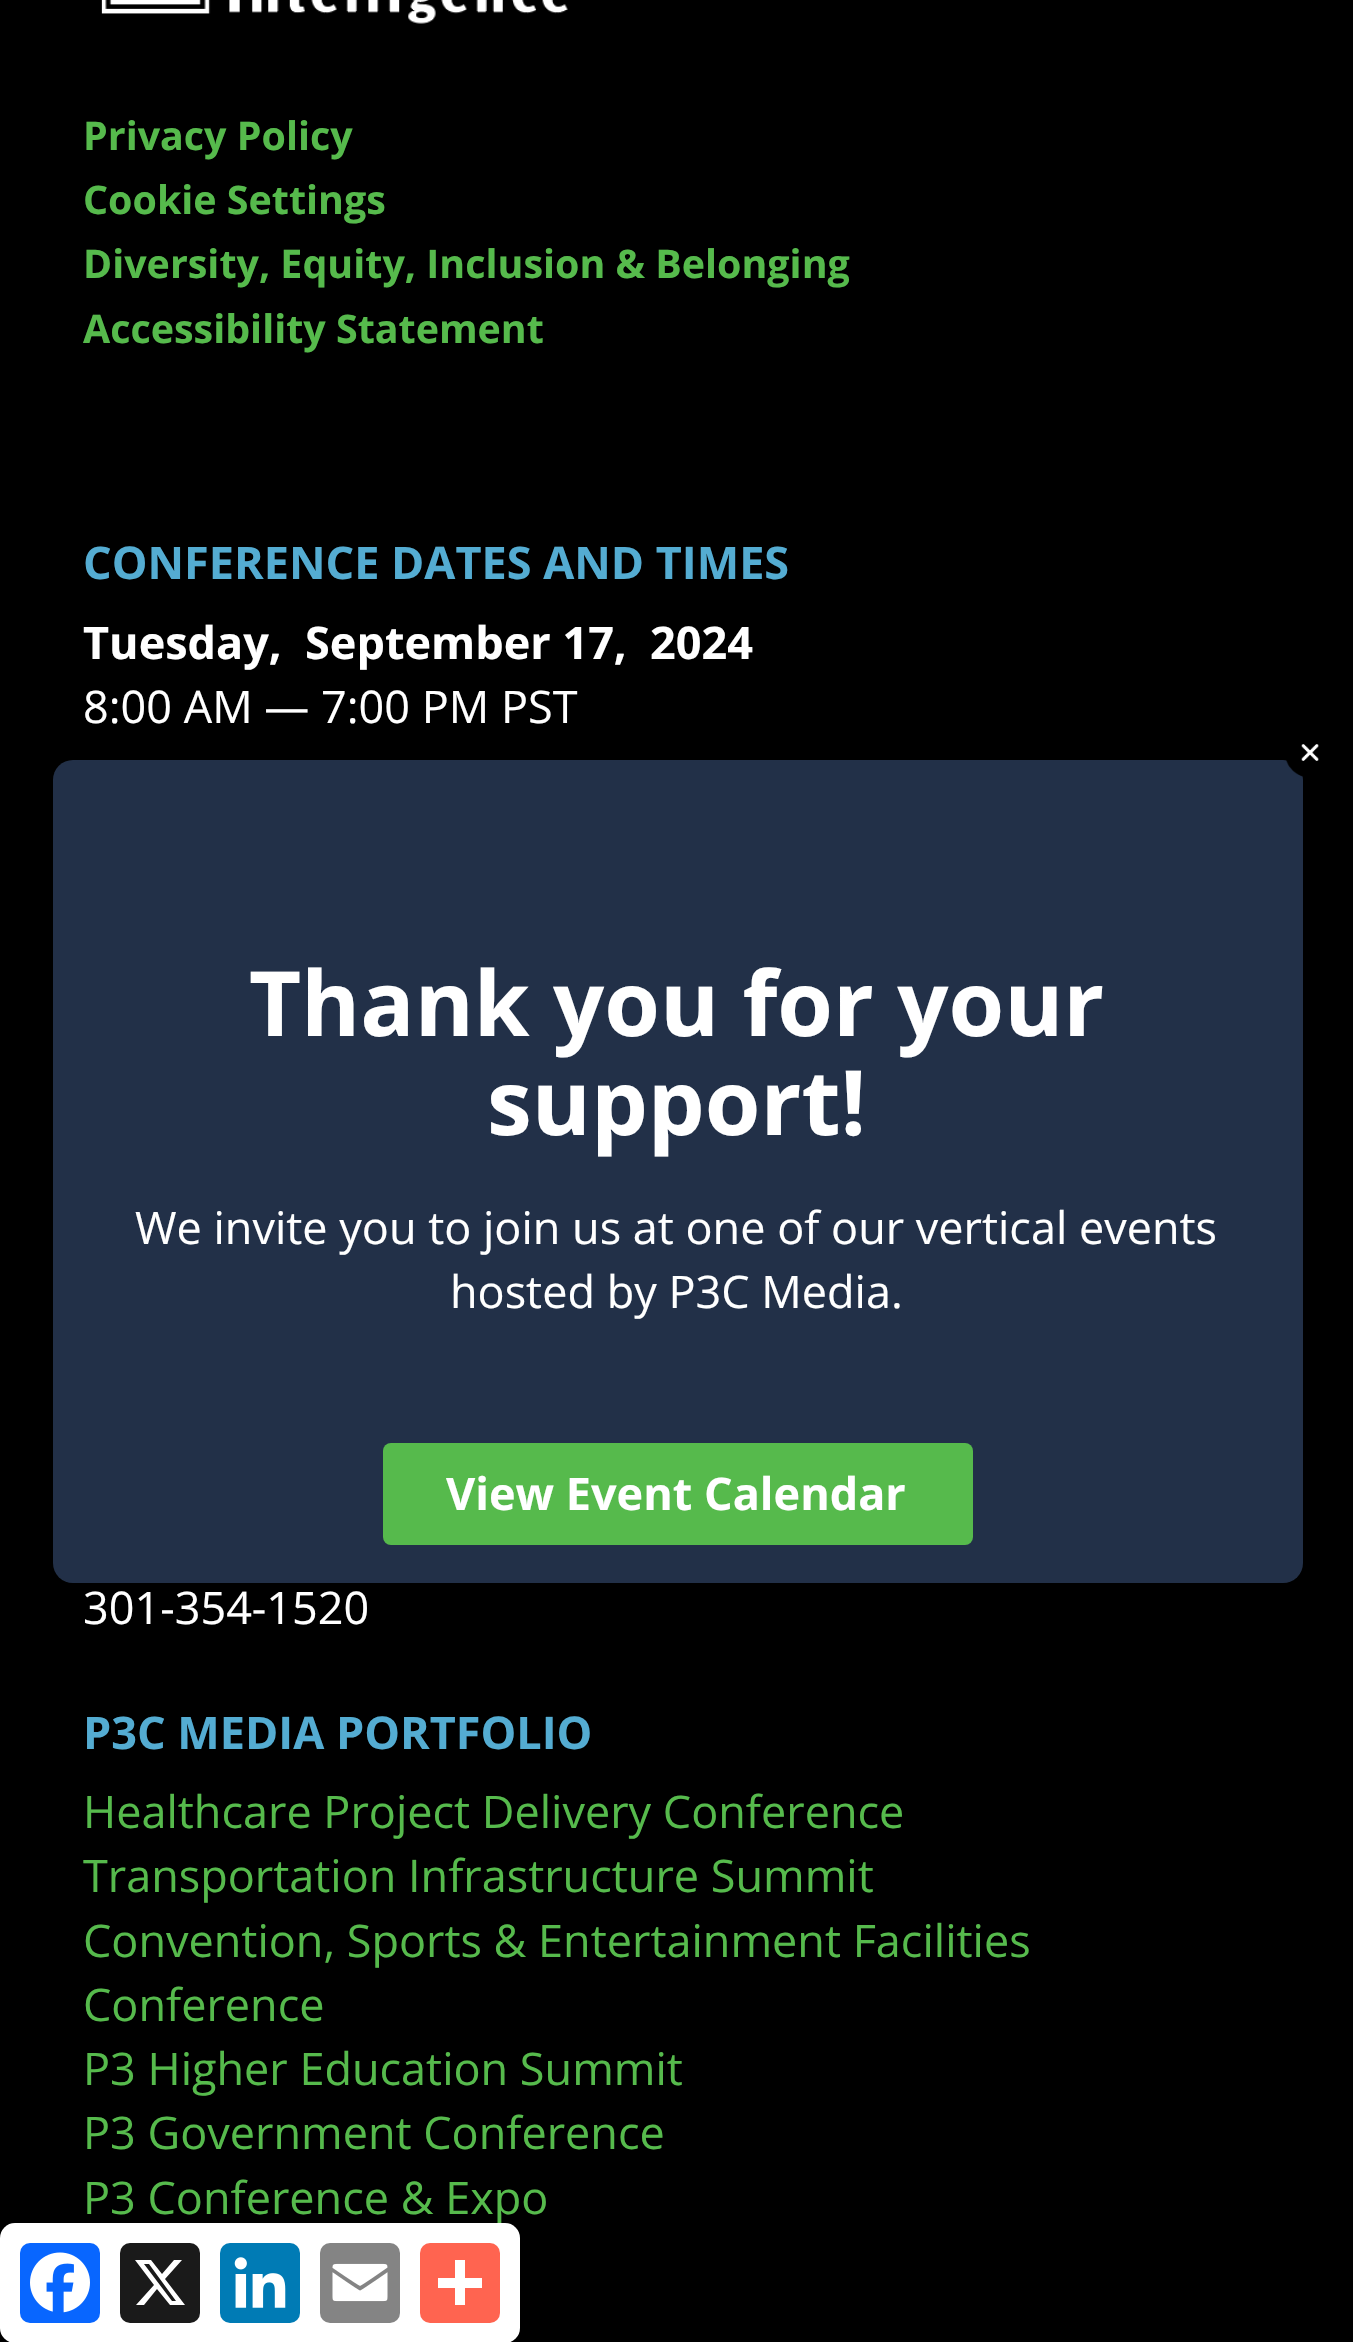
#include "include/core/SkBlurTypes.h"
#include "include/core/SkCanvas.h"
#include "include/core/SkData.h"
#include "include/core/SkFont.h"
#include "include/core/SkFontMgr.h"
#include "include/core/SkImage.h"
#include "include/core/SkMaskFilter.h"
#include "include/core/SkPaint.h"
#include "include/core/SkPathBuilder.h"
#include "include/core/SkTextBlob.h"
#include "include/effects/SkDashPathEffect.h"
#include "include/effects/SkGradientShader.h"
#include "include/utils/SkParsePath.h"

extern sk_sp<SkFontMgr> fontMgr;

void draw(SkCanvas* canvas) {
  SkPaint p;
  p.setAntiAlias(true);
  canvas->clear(SK_ColorBLACK);
  canvas->drawImageRect(SkImages::DeferredFromEncodedData(SkData::MakeFromFileName("images/1.png")), SkRect::MakeLTRB(101, 0, 568, 24), SkSamplingOptions());
  p.setColor(SK_ColorBLACK);
  p.setMaskFilter(SkMaskFilter::MakeBlur(kNormal_SkBlurStyle, 12.5f));
  canvas->drawRoundRect(SkRect::MakeLTRB(53, 760, 1303, 1583), 20, 20, p);
  p.setMaskFilter(nullptr);
  p.setColor(SkColorSetRGB(34, 48, 72));
  canvas->drawRoundRect(SkRect::MakeLTRB(53, 760, 1303, 1583), 20, 20, p);
  canvas->drawImageRect(SkImages::DeferredFromEncodedData(SkData::MakeFromFileName("images/2.png")), SkRect::MakeLTRB(1286, 744, 1319, 777), SkSamplingOptions());
  p.setColor(SkColorSetRGB(86, 186, 76));
  canvas->drawRoundRect(SkRect::MakeLTRB(383, 1443, 973, 1545), 8, 8, p);
  SkFont font1(fontMgr->matchFamilyStyle("Open Sans", SkFontStyle::Bold()), 39.4f);
  font1.setSubpixel(true);
  canvas->drawString("Privacy Policy", 83, 150, font1, p);
  canvas->drawString("Cookie Settings", 83, 214, font1, p);
  canvas->drawString("Diversity, Equity, Inclusion & Belonging", 83, 278, font1, p);
  canvas->drawString("Accessibility Statement", 83, 343, font1, p);
  SkFont font2(fontMgr->matchFamilyStyle("Open Sans", SkFontStyle::Bold()), 45);
  font2.setSubpixel(true);
  p.setColor(SkColorSetRGB(84, 172, 210));
  canvas->drawString("CONFERENCE DATES AND TIMES", 83, 579, font2, p);
  p.setColor(SK_ColorWHITE);
  canvas->drawString("Tuesday,  September 17,  2024", 83, 659, font2, p);
  SkFont font3(fontMgr->matchFamilyStyle("Open Sans", SkFontStyle::Normal()), 45);
  font3.setSubpixel(true);
  canvas->drawString("8:00 AM — 7:00 PM PST", 83, 723, font3, p);
  canvas->drawString("301-354-1520", 83, 1624, font3, p);
  p.setColor(SkColorSetRGB(84, 172, 210));
  canvas->drawString("P3C MEDIA PORTFOLIO", 83, 1749, font2, p);
  p.setColor(SkColorSetRGB(86, 186, 76));
  canvas->drawString("Healthcare Project Delivery Conference", 83, 1828, font3, p);
  canvas->drawString("Transportation Infrastructure Summit", 83, 1892, font3, p);
  canvas->drawString("Convention, Sports & Entertainment Facilities", 83, 1957, font3, p);
  canvas->drawString("Conference", 83, 2021, font3, p);
  canvas->drawString("P3 Higher Education Summit", 83, 2085, font3, p);
  canvas->drawString("P3 Government Conference", 83, 2149, font3, p);
  canvas->drawString("P3 Conference & Expo", 83, 2214, font3, p);
  SkFont font4(fontMgr->matchFamilyStyle("Open Sans", SkFontStyle::Bold()), 90);
  font4.setSubpixel(true);
  p.setColor(SK_ColorWHITE);
  canvas->drawString("Thank you for your", 249, 1036, font4, p);
  canvas->drawString("support!", 487, 1135, font4, p);
  canvas->drawString("We invite you to join us at one of our vertical events", 135, 1244, font3, p);
  canvas->drawString("hosted by P3C Media.", 450, 1308, font3, p);
  canvas->drawString("View Event Calendar", 446, 1510, font2, p);
  canvas->drawRoundRect(SkRect::MakeLTRB(0, 2223, 520, 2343), 15, 15, p);
  p.setColor(SkColorSetRGB(8, 102, 255));
  canvas->drawRoundRect(SkRect::MakeLTRB(20, 2243, 100, 2323), 10, 10, p);
  canvas->drawImageRect(SkImages::DeferredFromEncodedData(SkData::MakeFromFileName("images/3.png")), SkRect::MakeLTRB(30, 2252, 90, 2313), SkSamplingOptions());
  p.setColor(SkColorSetRGB(26, 26, 26));
  canvas->drawRoundRect(SkRect::MakeLTRB(120, 2243, 200, 2323), 10, 10, p);
  p.setColor(SK_ColorWHITE);
  canvas->drawPath(SkPathBuilder().moveTo(174, 2260).lineTo(182, 2260).lineTo(165, 2279).lineTo(185, 2305).lineTo(170, 2305).lineTo(157, 2289).lineTo(144, 2305).lineTo(136, 2305).lineTo(154, 2285).lineTo(135, 2260).lineTo(151, 2260).lineTo(162, 2274).close().moveTo(172, 2301).lineTo(176, 2301).lineTo(149, 2264).lineTo(144, 2264).close().detach(), p);
  p.setColor(SkColorSetRGB(0, 123, 181));
  canvas->drawRoundRect(SkRect::MakeLTRB(220, 2243, 300, 2323), 10, 10, p);
  canvas->drawImageRect(SkImages::DeferredFromEncodedData(SkData::MakeFromFileName("images/4.png")), SkRect::MakeLTRB(234, 2257, 286, 2308), SkSamplingOptions());
  p.setColor(SkColorSetRGB(132, 132, 132));
  canvas->drawRoundRect(SkRect::MakeLTRB(320, 2243, 400, 2323), 10, 10, p);
  canvas->drawImageRect(SkImages::DeferredFromEncodedData(SkData::MakeFromFileName("images/5.png")), SkRect::MakeLTRB(332, 2263, 388, 2302), SkSamplingOptions());
  p.setColor(SkColorSetRGB(255, 100, 80));
  canvas->drawRoundRect(SkRect::MakeLTRB(420, 2243, 500, 2323), 10, 10, p);
  p.setColor(SK_ColorWHITE);
  canvas->drawRect(SkRect::MakeLTRB(455, 2260, 465, 2305), p);
  canvas->drawRect(SkRect::MakeLTRB(438, 2278, 482, 2288), p);
}
